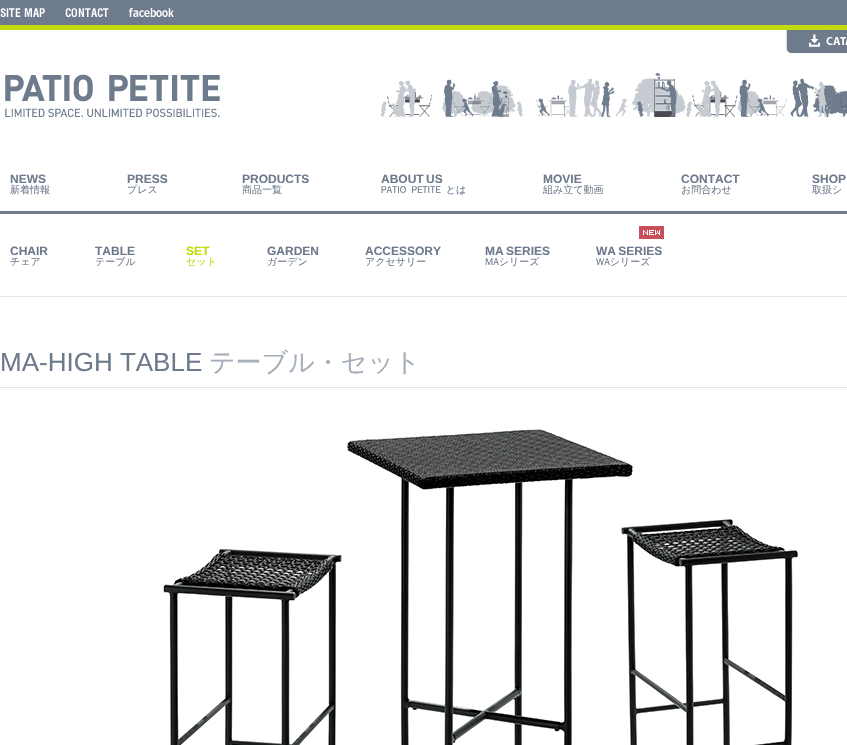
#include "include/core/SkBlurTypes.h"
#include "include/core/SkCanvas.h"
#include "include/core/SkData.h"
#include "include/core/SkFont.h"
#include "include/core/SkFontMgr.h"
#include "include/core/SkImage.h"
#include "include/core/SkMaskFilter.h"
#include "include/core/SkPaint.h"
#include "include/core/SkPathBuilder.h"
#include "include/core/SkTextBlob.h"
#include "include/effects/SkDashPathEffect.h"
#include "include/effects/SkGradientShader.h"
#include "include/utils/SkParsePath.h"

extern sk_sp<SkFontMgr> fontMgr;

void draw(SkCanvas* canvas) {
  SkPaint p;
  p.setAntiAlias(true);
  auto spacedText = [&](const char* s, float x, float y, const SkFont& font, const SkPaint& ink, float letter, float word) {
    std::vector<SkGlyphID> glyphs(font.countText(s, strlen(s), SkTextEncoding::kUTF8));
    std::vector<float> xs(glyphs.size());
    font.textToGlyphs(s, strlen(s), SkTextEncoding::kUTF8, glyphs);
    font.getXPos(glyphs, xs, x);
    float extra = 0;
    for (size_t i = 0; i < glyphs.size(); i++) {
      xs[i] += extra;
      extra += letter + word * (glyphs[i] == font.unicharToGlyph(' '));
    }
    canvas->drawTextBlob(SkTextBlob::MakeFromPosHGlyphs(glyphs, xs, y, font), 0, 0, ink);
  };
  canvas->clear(SK_ColorWHITE);
  p.setColor(SkColorSetRGB(110, 123, 140));
  canvas->drawRect(SkRect::MakeLTRB(0, 0, 847, 25), p);
  p.setColor(SkColorSetRGB(193, 219, 14));
  canvas->drawRect(SkRect::MakeLTRB(0, 25, 847, 30), p);
  canvas->drawImageRect(SkImages::DeferredFromEncodedData(SkData::MakeFromFileName("images/1.png")), SkRect::MakeLTRB(0, 8, 45, 17), SkSamplingOptions());
  canvas->drawImageRect(SkImages::DeferredFromEncodedData(SkData::MakeFromFileName("images/2.png")), SkRect::MakeLTRB(65, 8, 109, 17), SkSamplingOptions());
  canvas->drawImageRect(SkImages::DeferredFromEncodedData(SkData::MakeFromFileName("images/3.png")), SkRect::MakeLTRB(129, 8, 174, 17), SkSamplingOptions());
  canvas->drawImageRect(SkImages::DeferredFromEncodedData(SkData::MakeFromFileName("images/4.png")), SkRect::MakeLTRB(5, 74, 220, 117), SkSamplingOptions());
  canvas->drawImageRect(SkImages::DeferredFromEncodedData(SkData::MakeFromFileName("images/5.png")), SkRect::MakeLTRB(786, 30, 847, 53), SkSamplingOptions());
  canvas->drawImageRect(SkImages::DeferredFromEncodedData(SkData::MakeFromFileName("images/6.png")), SkRect::MakeLTRB(380, 73, 847, 118), SkSamplingOptions());
  p.setColor(SkColorSetRGB(110, 123, 140));
  canvas->drawRect(SkRect::MakeLTRB(0, 211, 847, 214), p);
  p.setColor(SkColorSetRGB(226, 229, 232));
  canvas->drawRect(SkRect::MakeLTRB(0, 296, 847, 297), p);
  p.setColor(SkColorSetRGB(200, 80, 91));
  canvas->drawRect(SkRect::MakeLTRB(639, 226, 664, 239), p);
  canvas->drawImageRect(SkImages::DeferredFromEncodedData(SkData::MakeFromFileName("images/7.png")), SkRect::MakeLTRB(643, 230, 660, 235), SkSamplingOptions());
  p.setColor(SkColorSetRGB(226, 229, 232));
  canvas->drawRect(SkRect::MakeLTRB(0, 387, 847, 388), p);
  canvas->drawImageRect(SkImages::DeferredFromEncodedData(SkData::MakeFromFileName("images/8.png")), SkRect::MakeLTRB(163, 429, 798, 745), SkSamplingOptions());
  SkFont font1(fontMgr->matchFamilyStyle("Liberation Sans", SkFontStyle::Bold()), 12);
  font1.setSubpixel(true);
  p.setColor(SkColorSetRGB(109, 122, 140));
  canvas->drawString("NEWS", 10, 183, font1, p);
  SkFont font2(fontMgr->matchFamilyStyle("WenQuanYi Zen Hei", SkFontStyle(500, SkFontStyle::kNormal_Width, SkFontStyle::kUpright_Slant)), 10);
  font2.setSubpixel(true);
  canvas->drawString("新着情報", 10, 193, font2, p);
  canvas->drawString("PRESS", 127, 183, font1, p);
  canvas->drawString("プレス", 127, 193, font2, p);
  canvas->drawString("PRODUCTS", 242, 183, font1, p);
  canvas->drawString("商品一覧", 242, 193, font2, p);
  spacedText("ABOUT US", 381, 183, font1, p, 0, -1);
  spacedText("PATIO PETITE とは", 381, 193, font2, p, 0, 2);
  canvas->drawString("MOVIE", 543, 183, font1, p);
  canvas->drawString("組み立て動画", 543, 193, font2, p);
  canvas->drawString("CONTACT", 681, 183, font1, p);
  canvas->drawString("お問合わせ", 681, 193, font2, p);
  canvas->drawString("SHOP", 812, 183, font1, p);
  canvas->drawString("取扱シ", 812, 193, font2, p);
  canvas->drawString("CHAIR", 10, 255, font1, p);
  canvas->drawString("チェア", 10, 265, font2, p);
  canvas->drawString("TABLE", 95, 255, font1, p);
  canvas->drawString("テーブル", 95, 265, font2, p);
  p.setColor(SkColorSetRGB(193, 219, 14));
  canvas->drawString("SET", 186, 255, font1, p);
  canvas->drawString("セット", 186, 265, font2, p);
  p.setColor(SkColorSetRGB(109, 122, 140));
  canvas->drawString("GARDEN", 267, 255, font1, p);
  canvas->drawString("ガーデン", 267, 265, font2, p);
  canvas->drawString("ACCESSORY", 365, 255, font1, p);
  canvas->drawString("アクセサリー", 365, 265, font2, p);
  spacedText("MA SERIES", 485, 255, font1, p, 0, -1);
  canvas->drawString("MAシリーズ", 485, 265, font2, p);
  spacedText("WA SERIES", 596, 255, font1, p, 0, -1);
  canvas->drawString("WAシリーズ", 596, 265, font2, p);
  SkFont font3(fontMgr->matchFamilyStyle("Liberation Sans", SkFontStyle::Normal()), 26);
  font3.setSubpixel(true);
  canvas->drawString("MA-HIGH TABLE", 0, 371, font3, p);
  SkFont font4(fontMgr->matchFamilyStyle("WenQuanYi Zen Hei", SkFontStyle(500, SkFontStyle::kNormal_Width, SkFontStyle::kUpright_Slant)), 26);
  font4.setSubpixel(true);
  p.setColor(SkColorSetRGB(167, 175, 186));
  canvas->drawString("テーブル・セット", 209, 371, font4, p);
}
